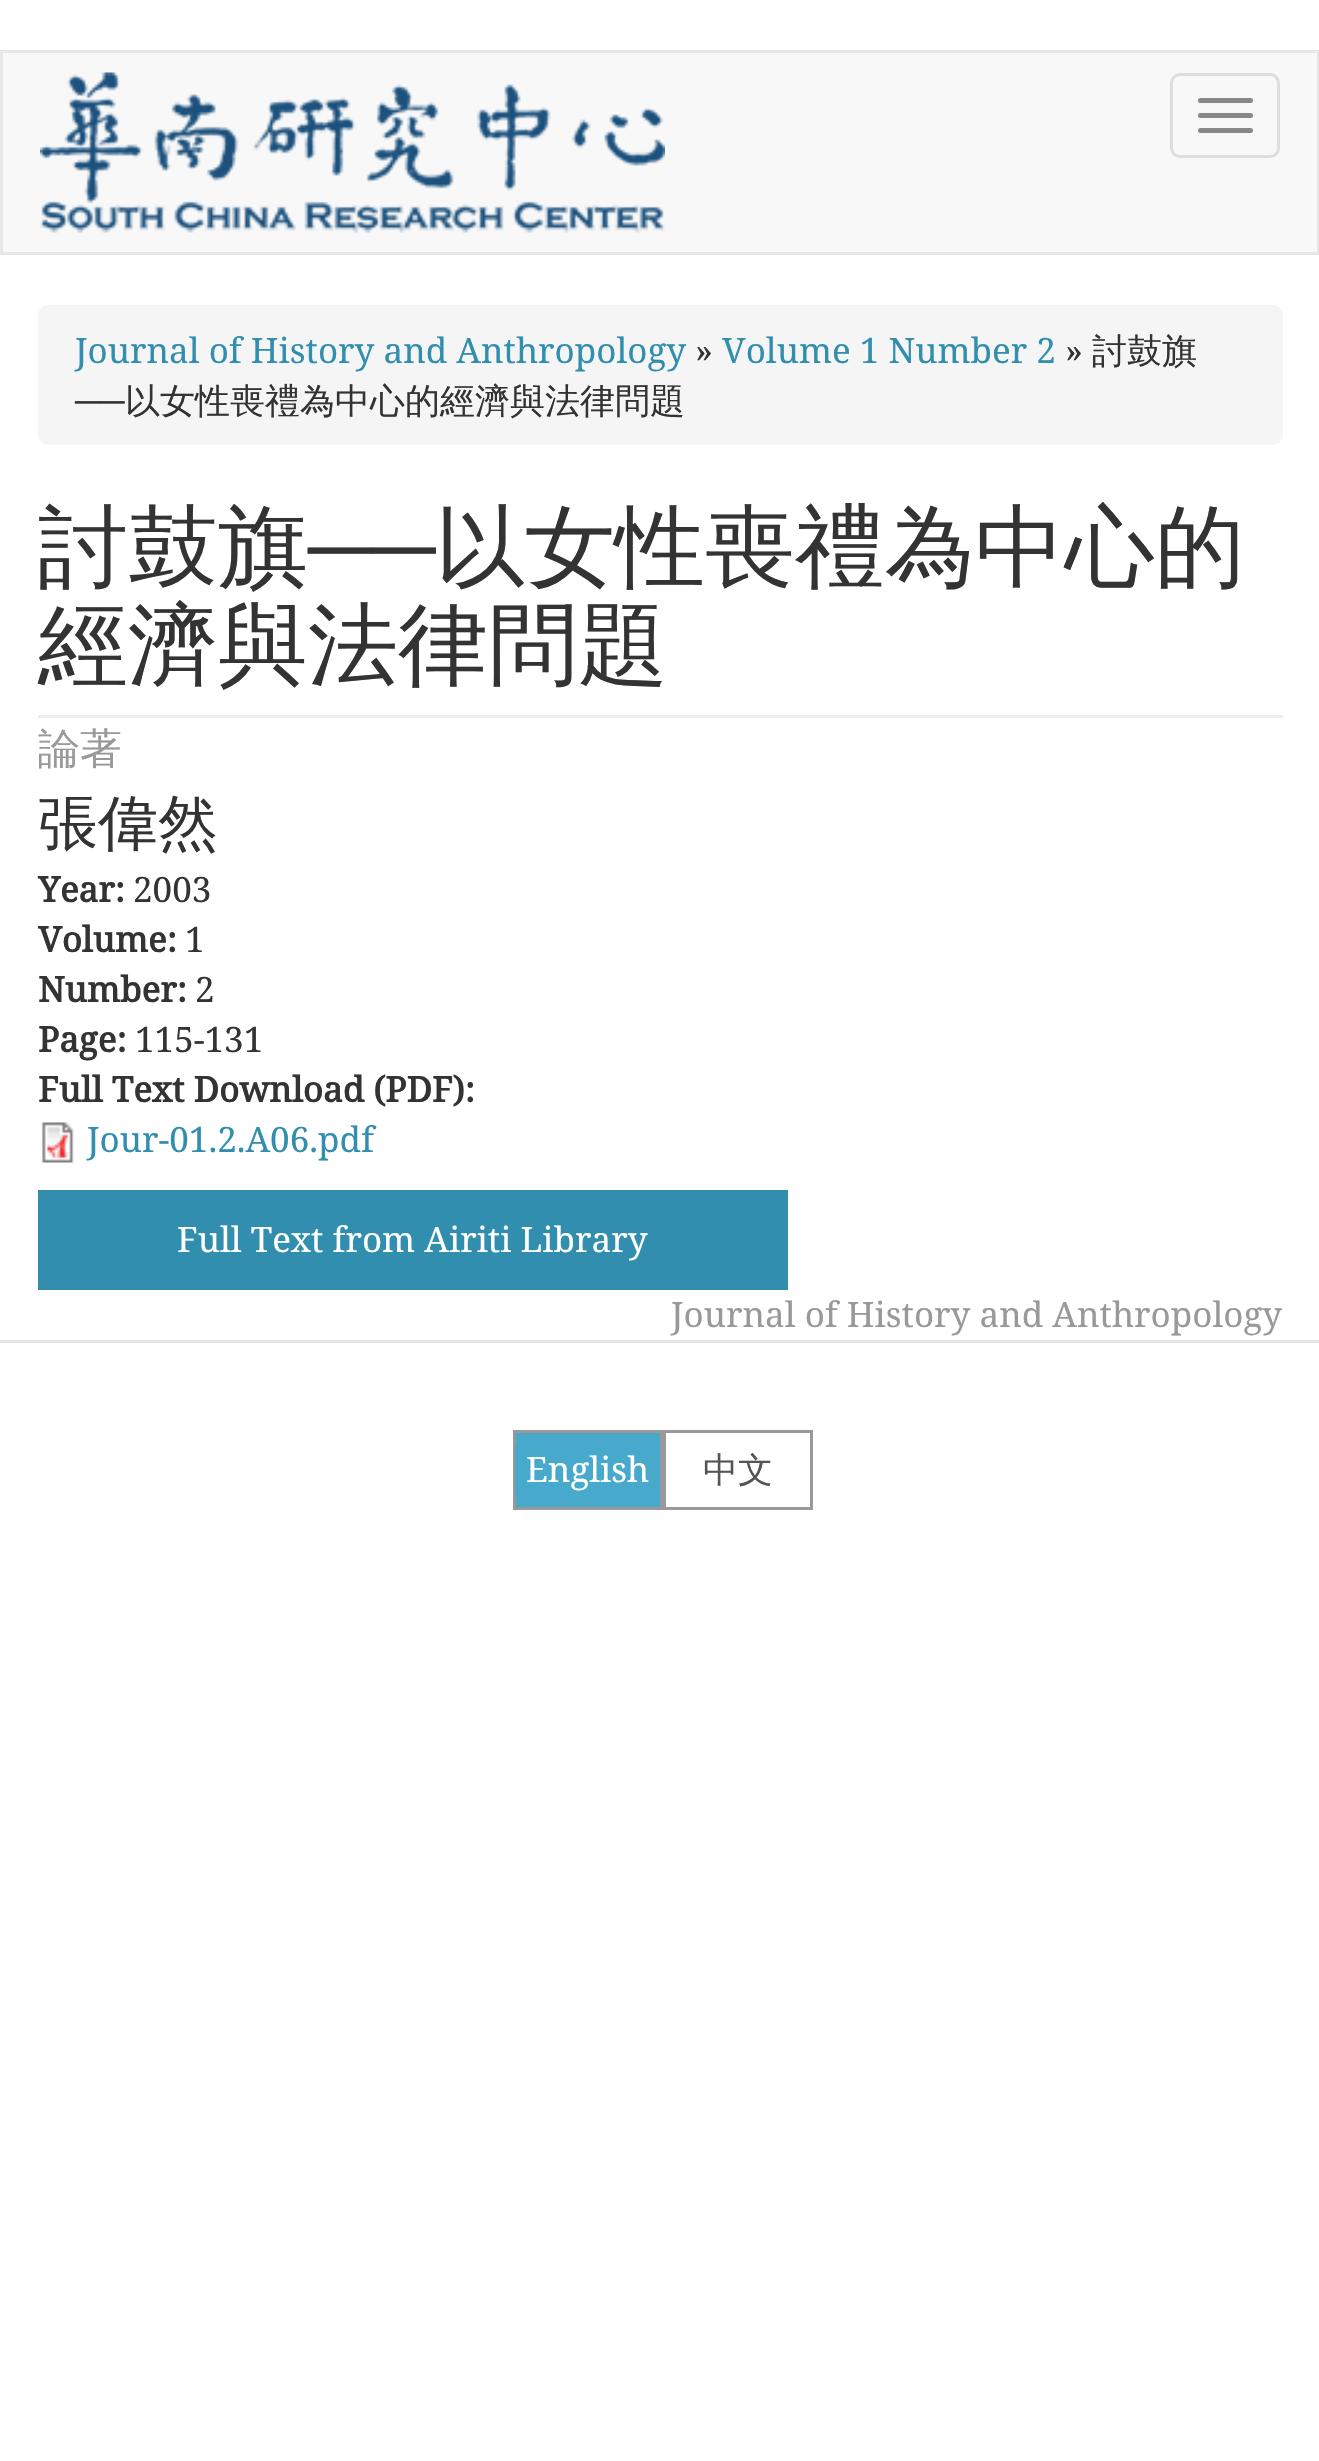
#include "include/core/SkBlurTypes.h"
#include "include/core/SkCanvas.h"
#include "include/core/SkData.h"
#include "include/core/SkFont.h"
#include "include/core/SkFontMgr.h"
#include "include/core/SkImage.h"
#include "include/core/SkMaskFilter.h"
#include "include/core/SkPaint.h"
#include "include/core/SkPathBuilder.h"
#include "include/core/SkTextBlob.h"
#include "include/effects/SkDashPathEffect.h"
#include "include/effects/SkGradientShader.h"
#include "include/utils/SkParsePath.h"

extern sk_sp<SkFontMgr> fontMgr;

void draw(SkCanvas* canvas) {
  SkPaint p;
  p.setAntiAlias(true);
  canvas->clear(SK_ColorWHITE);
  p.setColor(SkColorSetRGB(248, 248, 248));
  canvas->drawRect(SkRect::MakeLTRB(1.5f, 51.5f, 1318.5f, 253.5f), p);
  p.setStyle(SkPaint::kStroke_Style);
  p.setStrokeWidth(3);
  p.setColor(SkColorSetRGB(231, 231, 231));
  canvas->drawRect(SkRect::MakeLTRB(1.5f, 51.5f, 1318.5f, 253.5f), p);
  canvas->drawImageRect(SkImages::DeferredFromEncodedData(SkData::MakeFromFileName("images/1.png")), SkRect::MakeLTRB(40, 72, 665, 233), SkSamplingOptions());
  p.setColor(SkColorSetRGB(221, 221, 221));
  canvas->drawRoundRect(SkRect::MakeLTRB(1171.5f, 74.5f, 1278.5f, 156.5f), 8.5f, 8.5f, p);
  p.setStyle(SkPaint::kFill_Style);
  p.setColor(SkColorSetRGB(136, 136, 136));
  canvas->drawRoundRect(SkRect::MakeLTRB(1198, 98, 1253, 103), 2.5f, 2.5f, p);
  canvas->drawRoundRect(SkRect::MakeLTRB(1198, 113, 1253, 118), 2.5f, 2.5f, p);
  canvas->drawRoundRect(SkRect::MakeLTRB(1198, 128, 1253, 133), 2.5f, 2.5f, p);
  p.setColor(SkColorSetRGB(245, 245, 245));
  canvas->drawRoundRect(SkRect::MakeLTRB(38, 305, 1283, 445), 10, 10, p);
  p.setColor(SkColorSetRGB(238, 238, 238));
  canvas->drawRect(SkRect::MakeLTRB(38, 715, 1283, 718), p);
  canvas->drawImageRect(SkImages::DeferredFromEncodedData(SkData::MakeFromFileName("images/2.png")), SkRect::MakeLTRB(41, 1122, 74, 1163), SkSamplingOptions());
  p.setColor(SkColorSetRGB(49, 142, 174));
  canvas->drawRect(SkRect::MakeLTRB(38, 1190, 788, 1290), p);
  p.setColor(SkColorSetRGB(229, 229, 229));
  canvas->drawRect(SkRect::MakeLTRB(0, 1340, 1319, 1343), p);
  p.setColor(SkColorSetRGB(71, 169, 203));
  canvas->drawRect(SkRect::MakeLTRB(514.5f, 1431.5f, 661.5f, 1508.5f), p);
  p.setStyle(SkPaint::kStroke_Style);
  p.setColor(SkColorSetRGB(153, 153, 153));
  canvas->drawRect(SkRect::MakeLTRB(514.5f, 1431.5f, 661.5f, 1508.5f), p);
  p.setStyle(SkPaint::kFill_Style);
  p.setColor(SkColorSetRGB(71, 169, 203));
  canvas->drawRect(SkRect::MakeLTRB(515, 1445, 516, 1495), p);
  p.setStyle(SkPaint::kStroke_Style);
  p.setColor(SkColorSetRGB(153, 153, 153));
  canvas->drawRect(SkRect::MakeLTRB(664.5f, 1431.5f, 811.5f, 1508.5f), p);
  SkFont font1(fontMgr->matchFamilyStyle("Noto Serif", SkFontStyle::Normal()), 35);
  font1.setSubpixel(true);
  p.setStyle(SkPaint::kFill_Style);
  p.setColor(SkColorSetRGB(49, 142, 174));
  canvas->drawString("Journal of History and Anthropology", 75, 363, font1, p);
  p.setColor(SkColorSetRGB(51, 51, 51));
  canvas->drawString("»", 695, 363, font1, p);
  p.setColor(SkColorSetRGB(49, 142, 174));
  canvas->drawString("Volume 1 Number 2", 722, 363, font1, p);
  p.setColor(SkColorSetRGB(51, 51, 51));
  canvas->drawString("»", 1065, 363, font1, p);
  SkFont font2(fontMgr->matchFamilyStyle("WenQuanYi Zen Hei", SkFontStyle(500, SkFontStyle::kNormal_Width, SkFontStyle::kUpright_Slant)), 35);
  font2.setSubpixel(true);
  canvas->drawString("討鼓旗", 1092, 363, font2, p);
  SkFont font3(fontMgr->matchFamilyStyle("Liberation Serif", SkFontStyle::Normal()), 35);
  font3.setSubpixel(true);
  canvas->drawString("──", 75, 413, font3, p);
  canvas->drawString("以女性喪禮為中心的經濟與法律問題", 125, 413, font2, p);
  SkFont font4(fontMgr->matchFamilyStyle("WenQuanYi Zen Hei", SkFontStyle(500, SkFontStyle::kNormal_Width, SkFontStyle::kUpright_Slant)), 90);
  font4.setSubpixel(true);
  canvas->drawString("討鼓旗", 38, 578, font4, p);
  SkFont font5(fontMgr->matchFamilyStyle("Liberation Serif", SkFontStyle::Normal()), 90);
  font5.setSubpixel(true);
  canvas->drawString("──", 308, 578, font5, p);
  canvas->drawString("以女性喪禮為中心的", 435, 578, font4, p);
  canvas->drawString("經濟與法律問題", 38, 676, font4, p);
  SkFont font6(fontMgr->matchFamilyStyle("WenQuanYi Zen Hei", SkFontStyle(500, SkFontStyle::kNormal_Width, SkFontStyle::kUpright_Slant)), 42);
  font6.setSubpixel(true);
  p.setColor(SkColorSetRGB(153, 153, 153));
  canvas->drawString("論著", 38, 763, font6, p);
  SkFont font7(fontMgr->matchFamilyStyle("WenQuanYi Zen Hei", SkFontStyle(500, SkFontStyle::kNormal_Width, SkFontStyle::kUpright_Slant)), 60);
  font7.setSubpixel(true);
  p.setColor(SkColorSetRGB(51, 51, 51));
  canvas->drawString("張偉然", 38, 844, font7, p);
  SkFont font8(fontMgr->matchFamilyStyle("Noto Serif", SkFontStyle::Bold()), 35);
  font8.setSubpixel(true);
  canvas->drawString("Year:", 38, 902, font8, p);
  canvas->drawString("2003", 133, 902, font1, p);
  canvas->drawString("Volume:", 38, 952, font8, p);
  canvas->drawString("1", 185, 952, font1, p);
  canvas->drawString("Number:", 38, 1002, font8, p);
  canvas->drawString("2", 195, 1002, font1, p);
  canvas->drawString("Page:", 38, 1052, font8, p);
  canvas->drawString("115-131", 135, 1052, font1, p);
  canvas->drawString("Full Text Download (PDF):", 38, 1102, font8, p);
  p.setColor(SkColorSetRGB(49, 142, 174));
  canvas->drawString("Jour-01.2.A06.pdf", 87, 1152, font1, p);
  p.setColor(SK_ColorWHITE);
  canvas->drawString("Full Text from Airiti Library", 177, 1252, font1, p);
  p.setColor(SkColorSetRGB(153, 153, 153));
  canvas->drawString("Journal of History and Anthropology", 671, 1327, font1, p);
  p.setColor(SK_ColorWHITE);
  canvas->drawString("English", 526, 1482, font1, p);
  p.setColor(SkColorSetRGB(85, 85, 85));
  canvas->drawString("中文", 703, 1482, font2, p);
}
